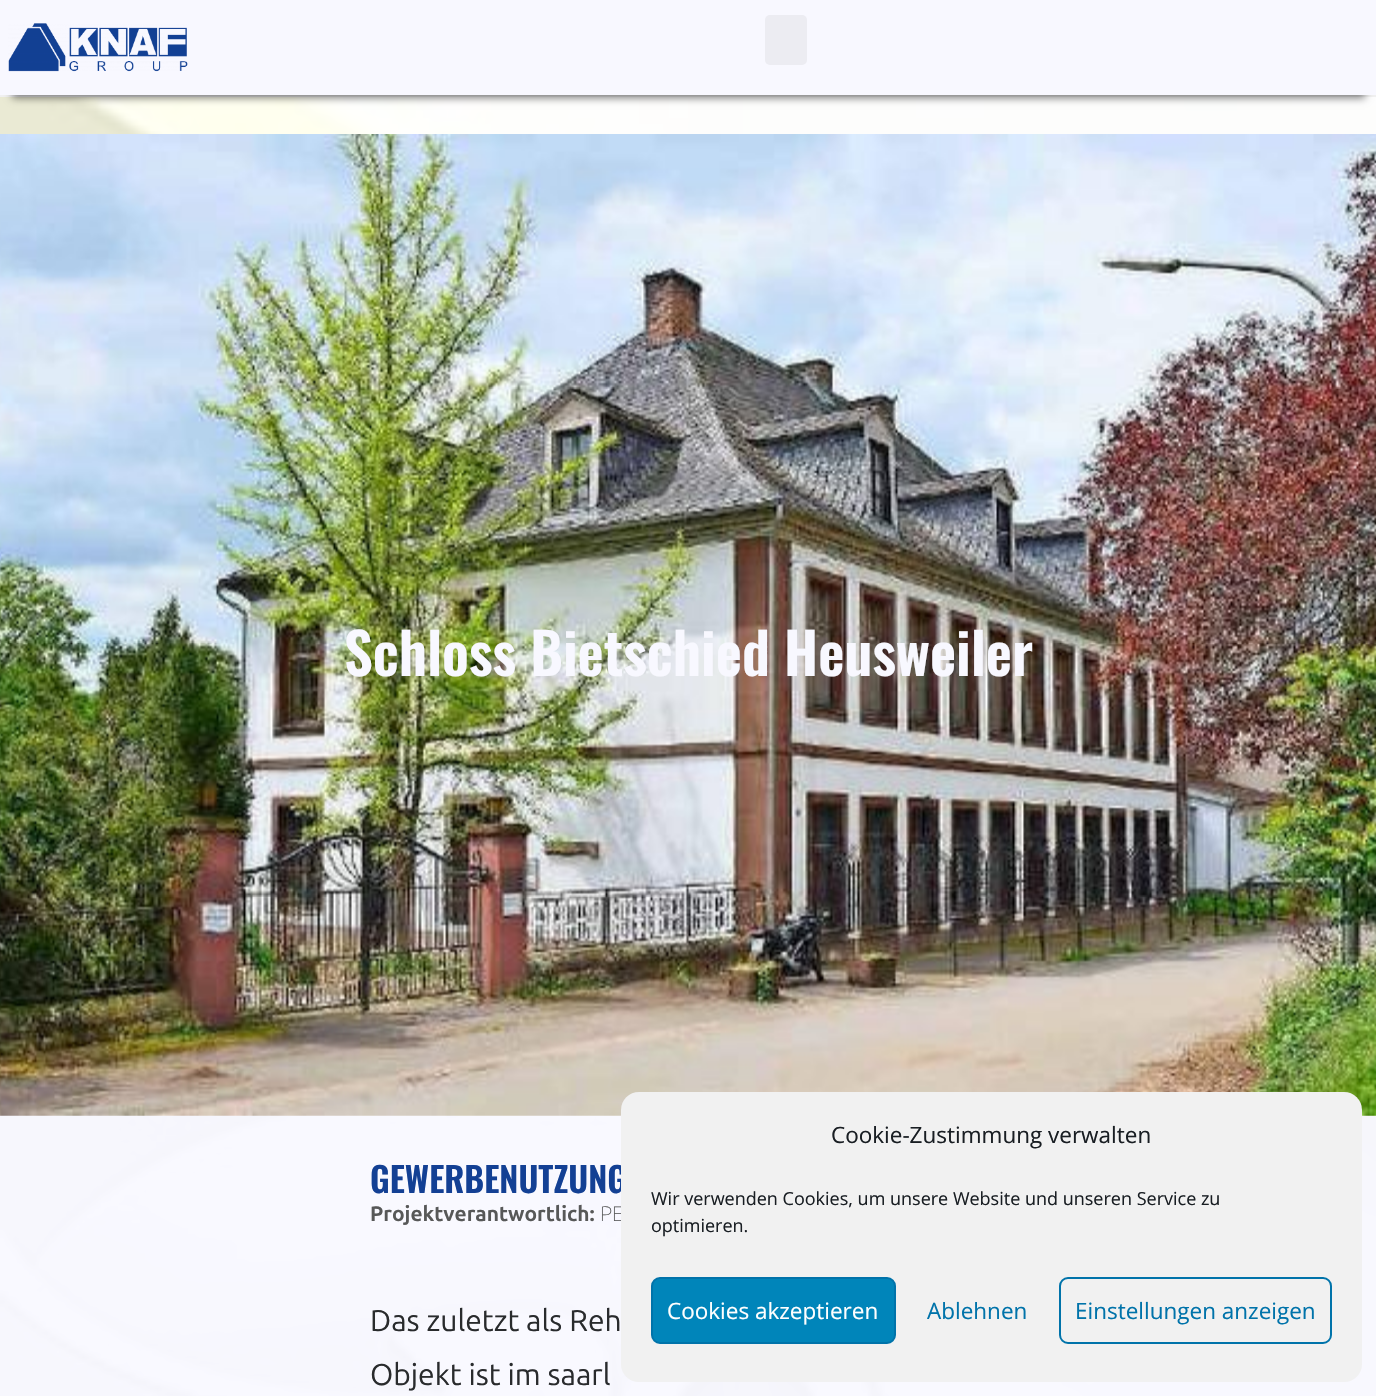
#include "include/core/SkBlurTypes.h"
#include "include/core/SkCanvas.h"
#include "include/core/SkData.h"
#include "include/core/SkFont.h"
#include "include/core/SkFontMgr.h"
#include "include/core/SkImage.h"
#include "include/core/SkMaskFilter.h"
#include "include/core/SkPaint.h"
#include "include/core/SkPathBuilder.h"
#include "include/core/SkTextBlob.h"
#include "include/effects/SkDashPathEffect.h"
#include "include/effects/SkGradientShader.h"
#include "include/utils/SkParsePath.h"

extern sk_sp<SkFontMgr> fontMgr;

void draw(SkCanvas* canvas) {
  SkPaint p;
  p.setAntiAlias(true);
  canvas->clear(SK_ColorWHITE);
  p.setColor(SkColorSetRGB(249, 249, 255));
  canvas->drawRect(SkRect::MakeLTRB(0, 1115, 1376, 1396), p);
  p.setColor(SkColorSetRGB(241, 241, 241));
  canvas->drawRect(SkRect::MakeLTRB(0, 95, 1376, 97), p);
  canvas->drawImageRect(SkImages::DeferredFromEncodedData(SkData::MakeFromFileName("images/2.png")), SkRect::MakeLTRB(0, 97, 1376, 1396), SkSamplingOptions());
  p.setColor(SkColorSetARGB(128, 0, 0, 0));
  p.setMaskFilter(SkMaskFilter::MakeBlur(kNormal_SkBlurStyle, 4));
  canvas->drawRect(SkRect::MakeLTRB(12, 27, 1365, 98), p);
  p.setMaskFilter(nullptr);
  p.setColor(SkColorSetRGB(248, 248, 255));
  canvas->drawRect(SkRect::MakeLTRB(0, 0, 1376, 95), p);
  canvas->drawImageRect(SkImages::DeferredFromEncodedData(SkData::MakeFromFileName("images/1.png")), SkRect::MakeLTRB(8, 23, 188, 72), SkSamplingOptions());
  p.setColor(SkColorSetRGB(236, 236, 242));
  canvas->drawRoundRect(SkRect::MakeLTRB(765, 15, 807, 65), 5, 5, p);
  canvas->drawImageRect(SkImages::DeferredFromEncodedData(SkData::MakeFromFileName("images/3.png")), SkRect::MakeLTRB(0, 134, 1376, 1116), SkSamplingOptions());
  SkFont font1(fontMgr->matchFamilyStyle("Oswald", SkFontStyle(600, SkFontStyle::kNormal_Width, SkFontStyle::kUpright_Slant)), 57);
  font1.setSubpixel(true);
  p.setColor(SkColorSetRGB(248, 248, 255));
  canvas->drawString("Schloss Bietschied Heusweiler", 344, 676, font1, p);
  SkFont font2(fontMgr->matchFamilyStyle("Oswald", SkFontStyle(600, SkFontStyle::kNormal_Width, SkFontStyle::kUpright_Slant)), 34.5f);
  font2.setSubpixel(true);
  p.setColor(SkColorSetRGB(19, 64, 148));
  canvas->drawString("GEWERBENUTZUNG", 370, 1193, font2, p);
  SkFont font3(fontMgr->matchFamilyStyle("Ubuntu", SkFontStyle::Bold()), 21);
  font3.setSubpixel(true);
  p.setColor(SkColorSetRGB(87, 88, 88));
  canvas->drawString("Projektverantwortlich:", 370, 1221, font3, p);
  SkFont font4(fontMgr->matchFamilyStyle("Ubuntu", SkFontStyle(100, SkFontStyle::kNormal_Width, SkFontStyle::kUpright_Slant)), 21);
  font4.setSubpixel(true);
  canvas->drawString("PE", 600, 1221, font4, p);
  SkFont font5(fontMgr->matchFamilyStyle("Ubuntu", SkFontStyle::Normal()), 30);
  font5.setSubpixel(true);
  p.setColor(SkColorSetRGB(41, 43, 45));
  canvas->drawString("Das zuletzt als Reh", 370, 1331, font5, p);
  canvas->drawString("Objekt ist im saarl", 370, 1385, font5, p);
  p.setColor(SkColorSetRGB(241, 241, 241));
  canvas->drawRoundRect(SkRect::MakeLTRB(621, 1092, 1362, 1382), 18, 18, p);
  SkFont font6(fontMgr->matchFamilyStyle("Open Sans", SkFontStyle::Normal()), 22.5f);
  font6.setSubpixel(true);
  p.setColor(SkColorSetRGB(25, 30, 35));
  canvas->drawString("Cookie-Zustimmung verwalten", 831, 1143, font6, p);
  SkFont font7(fontMgr->matchFamilyStyle("Open Sans", SkFontStyle::Normal()), 18);
  font7.setSubpixel(true);
  canvas->drawString("Wir verwenden Cookies, um unsere Website und unseren Service zu", 651, 1205, font7, p);
  canvas->drawString("optimieren.", 651, 1232, font7, p);
  p.setColor(SkColorSetRGB(0, 133, 186));
  canvas->drawRoundRect(SkRect::MakeLTRB(652, 1278, 895, 1343), 8, 8, p);
  p.setStyle(SkPaint::kStroke_Style);
  p.setStrokeWidth(2);
  p.setColor(SkColorSetRGB(0, 115, 170));
  canvas->drawRoundRect(SkRect::MakeLTRB(652, 1278, 895, 1343), 8, 8, p);
  p.setStyle(SkPaint::kFill_Style);
  p.setColor(SK_ColorWHITE);
  canvas->drawString("Cookies akzeptieren", 667, 1319, font6, p);
  p.setColor(SkColorSetRGB(0, 115, 170));
  canvas->drawString("Ablehnen", 927, 1319, font6, p);
  p.setStyle(SkPaint::kStroke_Style);
  canvas->drawRoundRect(SkRect::MakeLTRB(1060, 1278, 1331, 1343), 8, 8, p);
  p.setStyle(SkPaint::kFill_Style);
  canvas->drawString("Einstellungen anzeigen", 1075, 1319, font6, p);
}
